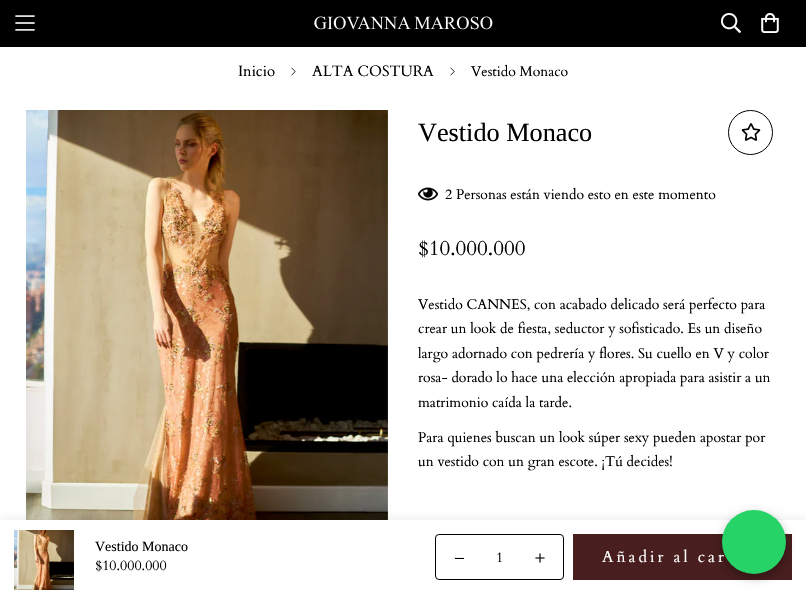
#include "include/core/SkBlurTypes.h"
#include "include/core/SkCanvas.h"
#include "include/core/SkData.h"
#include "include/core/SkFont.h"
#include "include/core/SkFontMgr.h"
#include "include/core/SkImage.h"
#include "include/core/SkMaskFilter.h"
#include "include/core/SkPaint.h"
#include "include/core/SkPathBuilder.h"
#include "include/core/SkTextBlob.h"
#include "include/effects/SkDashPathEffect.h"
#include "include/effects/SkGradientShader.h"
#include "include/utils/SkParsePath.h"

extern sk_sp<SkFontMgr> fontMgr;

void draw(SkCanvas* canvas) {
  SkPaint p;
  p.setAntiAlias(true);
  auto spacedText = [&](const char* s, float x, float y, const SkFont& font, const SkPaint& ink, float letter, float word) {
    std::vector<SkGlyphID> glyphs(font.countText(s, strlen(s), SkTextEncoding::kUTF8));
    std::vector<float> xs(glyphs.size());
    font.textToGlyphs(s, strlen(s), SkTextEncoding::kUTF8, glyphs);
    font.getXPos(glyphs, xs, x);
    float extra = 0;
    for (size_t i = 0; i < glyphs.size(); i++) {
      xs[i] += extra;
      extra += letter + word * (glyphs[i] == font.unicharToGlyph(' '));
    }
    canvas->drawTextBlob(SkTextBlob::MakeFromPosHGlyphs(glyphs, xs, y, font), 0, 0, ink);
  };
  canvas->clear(SK_ColorWHITE);
  p.setColor(SK_ColorBLACK);
  canvas->drawRect(SkRect::MakeLTRB(0, 0, 806, 47), p);
  canvas->drawImageRect(SkImages::DeferredFromEncodedData(SkData::MakeFromFileName("images/1.png")), SkRect::MakeLTRB(15, 15, 35, 31), SkSamplingOptions());
  canvas->drawImageRect(SkImages::DeferredFromEncodedData(SkData::MakeFromFileName("images/2.png")), SkRect::MakeLTRB(314, 16, 493, 30), SkSamplingOptions());
  canvas->drawImageRect(SkImages::DeferredFromEncodedData(SkData::MakeFromFileName("images/3.png")), SkRect::MakeLTRB(721, 13, 741, 33), SkSamplingOptions());
  canvas->drawImageRect(SkImages::DeferredFromEncodedData(SkData::MakeFromFileName("images/4.png")), SkRect::MakeLTRB(761, 13, 779, 33), SkSamplingOptions());
  canvas->drawImageRect(SkImages::DeferredFromEncodedData(SkData::MakeFromFileName("images/5.png")), SkRect::MakeLTRB(291, 67, 296, 76), SkSamplingOptions());
  canvas->drawImageRect(SkImages::DeferredFromEncodedData(SkData::MakeFromFileName("images/5.png")), SkRect::MakeLTRB(450, 67, 455, 76), SkSamplingOptions());
  canvas->drawImageRect(SkImages::DeferredFromEncodedData(SkData::MakeFromFileName("images/6.png")), SkRect::MakeLTRB(26, 110, 388, 520), SkSamplingOptions());
  p.setStyle(SkPaint::kStroke_Style);
  p.setStrokeWidth(1);
  canvas->drawCircle(750.5f, 132.5f, 22, p);
  canvas->drawImageRect(SkImages::DeferredFromEncodedData(SkData::MakeFromFileName("images/7.png")), SkRect::MakeLTRB(741, 123, 761, 141), SkSamplingOptions());
  canvas->drawImageRect(SkImages::DeferredFromEncodedData(SkData::MakeFromFileName("images/8.png")), SkRect::MakeLTRB(418, 187, 438, 201), SkSamplingOptions());
  p.setStyle(SkPaint::kFill_Style);
  p.setColor(SkColorSetARGB(23, 0, 0, 0));
  p.setMaskFilter(SkMaskFilter::MakeBlur(kNormal_SkBlurStyle, 5));
  canvas->drawRect(SkRect::MakeLTRB(0, 520, 806, 594), p);
  p.setMaskFilter(nullptr);
  p.setColor(SK_ColorWHITE);
  canvas->drawRect(SkRect::MakeLTRB(0, 520, 806, 594), p);
  canvas->drawImageRect(SkImages::DeferredFromEncodedData(SkData::MakeFromFileName("images/9.png")), SkRect::MakeLTRB(14, 530, 74, 590), SkSamplingOptions());
  p.setStyle(SkPaint::kStroke_Style);
  p.setColor(SK_ColorBLACK);
  canvas->drawRoundRect(SkRect::MakeLTRB(435.5f, 534.5f, 563.5f, 579.5f), 3.5f, 3.5f, p);
  canvas->drawImageRect(SkImages::DeferredFromEncodedData(SkData::MakeFromFileName("images/10.png")), SkRect::MakeLTRB(454, 557, 464, 559), SkSamplingOptions());
  canvas->drawImageRect(SkImages::DeferredFromEncodedData(SkData::MakeFromFileName("images/11.png")), SkRect::MakeLTRB(535, 553, 545, 563), SkSamplingOptions());
  p.setStyle(SkPaint::kFill_Style);
  p.setColor(SkColorSetRGB(72, 30, 30));
  canvas->drawRect(SkRect::MakeLTRB(573, 534, 792, 580), p);
  p.setColor(SkColorSetARGB(77, 0, 0, 0));
  p.setMaskFilter(SkMaskFilter::MakeBlur(kNormal_SkBlurStyle, 5));
  canvas->drawRoundRect(SkRect::MakeLTRB(722, 514, 786, 578), 32, 32, p);
  p.setMaskFilter(nullptr);
  SkFont font1(fontMgr->matchFamilyStyle("Cardo", SkFontStyle::Normal()), 15);
  font1.setSubpixel(true);
  p.setColor(SK_ColorBLACK);
  canvas->drawString("Inicio", 238, 76, font1, p);
  canvas->drawString("ALTA COSTURA", 312, 76, font1, p);
  SkFont font2(fontMgr->matchFamilyStyle("Cardo", SkFontStyle::Normal()), 14);
  font2.setSubpixel(true);
  canvas->drawString("Vestido Monaco", 471, 76, font2, p);
  SkFont font3(fontMgr->matchFamilyStyle("Liberation Serif", SkFontStyle::Normal()), 26.25f);
  font3.setSubpixel(true);
  canvas->drawString("Vestido Monaco", 418, 141, font3, p);
  canvas->drawString("2 Personas están viendo esto en este momento", 445, 199, font2, p);
  SkFont font4(fontMgr->matchFamilyStyle("Cardo", SkFontStyle::Normal()), 21);
  font4.setSubpixel(true);
  canvas->drawString("$10.000.000", 418, 255, font4, p);
  canvas->drawString("Vestido CANNES, con acabado delicado será perfecto para", 418, 309, font2, p);
  canvas->drawString("crear un look de fiesta, seductor y sofisticado. Es un diseño", 418, 333, font2, p);
  canvas->drawString("largo adornado con pedrería y flores. Su cuello en V y color", 418, 358, font2, p);
  canvas->drawString("rosa- dorado lo hace una elección apropiada para asistir a un", 418, 382, font2, p);
  canvas->drawString("matrimonio caída la tarde.", 418, 407, font2, p);
  canvas->drawString("Para quienes buscan un look súper sexy pueden apostar por", 418, 442, font2, p);
  canvas->drawString("un vestido con un gran escote. ¡Tú decides!", 418, 466, font2, p);
  SkFont font5(fontMgr->matchFamilyStyle("Liberation Serif", SkFontStyle::Normal()), 14);
  font5.setSubpixel(true);
  canvas->drawString("Vestido Monaco", 95, 551, font5, p);
  canvas->drawString("$10.000.000", 95, 570, font2, p);
  canvas->drawString("1", 496, 562, font2, p);
  SkFont font6(fontMgr->matchFamilyStyle("Cardo", SkFontStyle::Normal()), 16);
  font6.setSubpixel(true);
  p.setColor(SK_ColorWHITE);
  spacedText("Añadir al car", 602, 562, font6, p, 3, 0);
  p.setColor(SkColorSetRGB(37, 211, 102));
  canvas->drawCircle(754, 542, 32, p);
}
